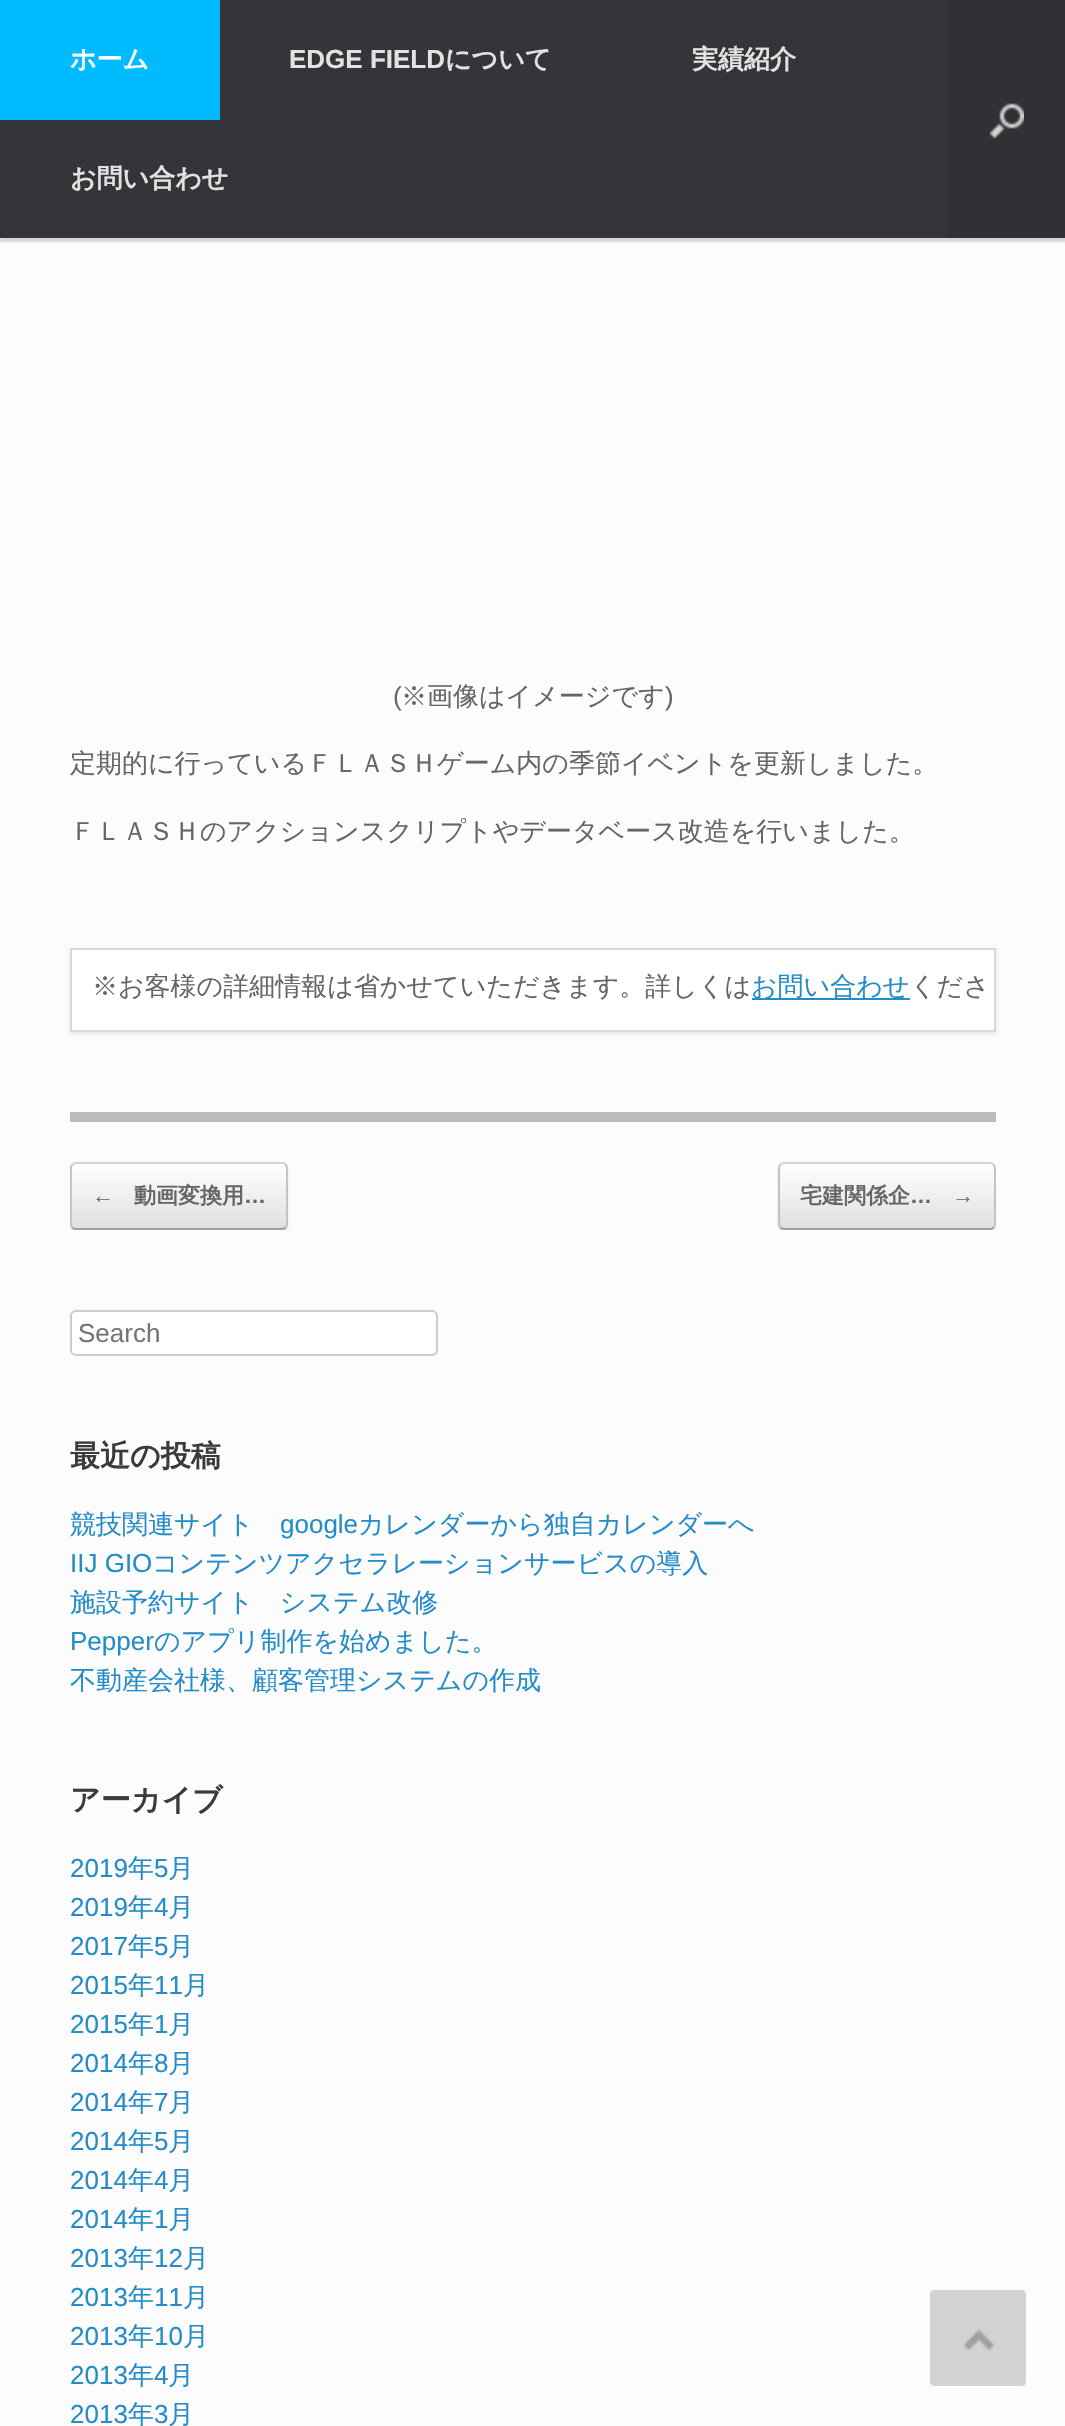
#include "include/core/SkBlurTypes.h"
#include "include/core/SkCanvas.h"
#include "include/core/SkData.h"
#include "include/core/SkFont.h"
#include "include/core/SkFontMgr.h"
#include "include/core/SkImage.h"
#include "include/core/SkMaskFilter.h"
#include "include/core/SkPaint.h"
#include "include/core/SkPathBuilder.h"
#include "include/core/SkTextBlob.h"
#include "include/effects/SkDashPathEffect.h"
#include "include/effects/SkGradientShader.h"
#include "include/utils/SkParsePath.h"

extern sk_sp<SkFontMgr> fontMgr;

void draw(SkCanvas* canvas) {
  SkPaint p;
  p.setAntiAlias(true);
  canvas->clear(SkColorSetRGB(252, 252, 252));
  p.setColor(SkColorSetARGB(38, 0, 0, 0));
  p.setMaskFilter(SkMaskFilter::MakeBlur(kNormal_SkBlurStyle, 1));
  canvas->drawRect(SkRect::MakeLTRB(0, 4, 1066, 242), p);
  p.setMaskFilter(nullptr);
  p.setColor(SkColorSetRGB(52, 53, 56));
  canvas->drawRect(SkRect::MakeLTRB(0, 0, 948, 238), p);
  p.setColor(SkColorSetRGB(0, 188, 255));
  canvas->drawRect(SkRect::MakeLTRB(0, 0, 220, 120), p);
  p.setColor(SkColorSetRGB(48, 49, 52));
  canvas->drawRect(SkRect::MakeLTRB(948, 0, 1065, 238), p);
  canvas->drawImageRect(SkImages::DeferredFromEncodedData(SkData::MakeFromFileName("images/1.png")), SkRect::MakeLTRB(990, 103, 1024, 138), SkSamplingOptions());
  p.setColor(SkColorSetRGB(187, 187, 187));
  canvas->drawRect(SkRect::MakeLTRB(70, 1112, 996, 1122), p);
  p.setColor(SkColorSetARGB(23, 0, 0, 0));
  p.setMaskFilter(SkMaskFilter::MakeBlur(kNormal_SkBlurStyle, 2));
  canvas->drawRect(SkRect::MakeLTRB(70, 950, 996, 1034), p);
  p.setMaskFilter(nullptr);
  p.setColor(SK_ColorWHITE);
  canvas->drawRect(SkRect::MakeLTRB(71, 949, 995, 1031), p);
  p.setStyle(SkPaint::kStroke_Style);
  p.setStrokeWidth(2);
  p.setColor(SkColorSetRGB(217, 217, 217));
  canvas->drawRect(SkRect::MakeLTRB(71, 949, 995, 1031), p);
  p.setStyle(SkPaint::kFill_Style);
  p.setColor(SkColorSetRGB(36, 140, 200));
  canvas->drawRect(SkRect::MakeLTRB(752, 998, 910, 1000), p);
  canvas->save();
  canvas->clipRect(SkRect::MakeLTRB(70, 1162, 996, 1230));
  p.setColor(SkColorSetARGB(31, 0, 0, 0));
  p.setMaskFilter(SkMaskFilter::MakeBlur(kNormal_SkBlurStyle, 1));
  canvas->drawRoundRect(SkRect::MakeLTRB(70, 1164, 288, 1232), 6, 6, p);
  p.setMaskFilter(nullptr);
  canvas->restore();
  canvas->save();
  canvas->clipPath(SkPathBuilder().moveTo(76, 1162).lineTo(282, 1162).cubicTo(285.5f, 1162, 288, 1164.5f, 288, 1168).lineTo(288, 1224).cubicTo(288, 1227.5f, 285.5f, 1230, 282, 1230).lineTo(76, 1230).cubicTo(72.5f, 1230, 70, 1227.5f, 70, 1224).lineTo(70, 1168).cubicTo(70, 1164.5f, 72.5f, 1162, 76, 1162).close().detach(), true);
  {
    const SkColor colors[] = {SkColorSetRGB(223, 223, 223), SK_ColorWHITE};
    const float stops[] = {0, 1};
    const SkPoint ends[] = {{72, 1228}, {72, 1164}};
    p.setShader(SkGradientShader::MakeLinear(ends, colors, stops, 2, SkTileMode::kClamp));
    p.setAlpha(255);
  }
  canvas->drawRect(SkRect::MakeLTRB(70, 1164, 288, 1228), p);
  canvas->restore();
  p.setStyle(SkPaint::kStroke_Style);
  p.setShader(nullptr);
  p.setColor(SkColorSetRGB(210, 210, 210));
  canvas->drawPath(SkPathBuilder().moveTo(72.5f, 1164.5f).cubicTo(73.5f, 1163.5f, 74.5f, 1163, 76, 1163).lineTo(282, 1163).cubicTo(283.5f, 1163, 284.5f, 1163.5f, 285.5f, 1164.5f).detach(), p);
  p.setColor(SkColorSetRGB(195, 195, 195));
  canvas->drawPath(SkPathBuilder().moveTo(285.5f, 1164.5f).cubicTo(286.5f, 1165.5f, 287, 1166.5f, 287, 1168).lineTo(287, 1224).cubicTo(287, 1225.5f, 286.5f, 1226.5f, 285.5f, 1227.5f).detach(), p);
  p.setColor(SkColorSetRGB(159, 159, 159));
  canvas->drawPath(SkPathBuilder().moveTo(285.5f, 1227.5f).cubicTo(284.5f, 1228.5f, 283.5f, 1229, 282, 1229).lineTo(76, 1229).cubicTo(74.5f, 1229, 73.5f, 1228.5f, 72.5f, 1227.5f).detach(), p);
  p.setColor(SkColorSetRGB(195, 195, 195));
  canvas->drawPath(SkPathBuilder().moveTo(72.5f, 1227.5f).cubicTo(71.5f, 1226.5f, 71, 1225.5f, 71, 1224).lineTo(71, 1168).cubicTo(71, 1166.5f, 71.5f, 1165.5f, 72.5f, 1164.5f).detach(), p);
  canvas->save();
  canvas->clipRect(SkRect::MakeLTRB(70, 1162, 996, 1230));
  p.setStyle(SkPaint::kFill_Style);
  p.setColor(SkColorSetARGB(31, 0, 0, 0));
  p.setMaskFilter(SkMaskFilter::MakeBlur(kNormal_SkBlurStyle, 1));
  canvas->drawRoundRect(SkRect::MakeLTRB(778, 1164, 996, 1232), 6, 6, p);
  p.setMaskFilter(nullptr);
  canvas->restore();
  canvas->save();
  canvas->clipPath(SkPathBuilder().moveTo(784, 1162).lineTo(990, 1162).cubicTo(993.5f, 1162, 996, 1164.5f, 996, 1168).lineTo(996, 1224).cubicTo(996, 1227.5f, 993.5f, 1230, 990, 1230).lineTo(784, 1230).cubicTo(780.5f, 1230, 778, 1227.5f, 778, 1224).lineTo(778, 1168).cubicTo(778, 1164.5f, 780.5f, 1162, 784, 1162).close().detach(), true);
  {
    const SkColor colors[] = {SkColorSetRGB(223, 223, 223), SK_ColorWHITE};
    const float stops[] = {0, 1};
    const SkPoint ends[] = {{780, 1228}, {780, 1164}};
    p.setShader(SkGradientShader::MakeLinear(ends, colors, stops, 2, SkTileMode::kClamp));
    p.setAlpha(255);
  }
  canvas->drawRect(SkRect::MakeLTRB(778, 1164, 996, 1228), p);
  canvas->restore();
  p.setStyle(SkPaint::kStroke_Style);
  p.setShader(nullptr);
  p.setColor(SkColorSetRGB(210, 210, 210));
  canvas->drawPath(SkPathBuilder().moveTo(780.5f, 1164.5f).cubicTo(781.5f, 1163.5f, 782.5f, 1163, 784, 1163).lineTo(990, 1163).cubicTo(991.5f, 1163, 992.5f, 1163.5f, 993.5f, 1164.5f).detach(), p);
  p.setColor(SkColorSetRGB(195, 195, 195));
  canvas->drawPath(SkPathBuilder().moveTo(993.5f, 1164.5f).cubicTo(994.5f, 1165.5f, 995, 1166.5f, 995, 1168).lineTo(995, 1224).cubicTo(995, 1225.5f, 994.5f, 1226.5f, 993.5f, 1227.5f).detach(), p);
  p.setColor(SkColorSetRGB(159, 159, 159));
  canvas->drawPath(SkPathBuilder().moveTo(993.5f, 1227.5f).cubicTo(992.5f, 1228.5f, 991.5f, 1229, 990, 1229).lineTo(784, 1229).cubicTo(782.5f, 1229, 781.5f, 1228.5f, 780.5f, 1227.5f).detach(), p);
  p.setColor(SkColorSetRGB(195, 195, 195));
  canvas->drawPath(SkPathBuilder().moveTo(780.5f, 1227.5f).cubicTo(779.5f, 1226.5f, 779, 1225.5f, 779, 1224).lineTo(779, 1168).cubicTo(779, 1166.5f, 779.5f, 1165.5f, 780.5f, 1164.5f).detach(), p);
  p.setStyle(SkPaint::kFill_Style);
  p.setColor(SK_ColorWHITE);
  canvas->drawRoundRect(SkRect::MakeLTRB(71, 1311, 437, 1355), 5, 5, p);
  p.setStyle(SkPaint::kStroke_Style);
  p.setColor(SkColorSetRGB(204, 204, 204));
  canvas->drawRoundRect(SkRect::MakeLTRB(71, 1311, 437, 1355), 5, 5, p);
  canvas->drawImageRect(SkImages::DeferredFromEncodedData(SkData::MakeFromFileName("images/2.png")), SkRect::MakeLTRB(930, 2290, 1026, 2386), SkSamplingOptions());
  SkFont font1(fontMgr->matchFamilyStyle("WenQuanYi Zen Hei", SkFontStyle::Bold()), 26);
  font1.setSubpixel(true);
  p.setStyle(SkPaint::kFill_Style);
  p.setColor(SK_ColorWHITE);
  canvas->drawString("ホーム", 70, 68, font1, p);
  SkFont font2(fontMgr->matchFamilyStyle("Liberation Sans", SkFontStyle::Bold()), 26);
  font2.setSubpixel(true);
  p.setColor(SkColorSetRGB(226, 226, 226));
  canvas->drawString("EDGE FIELD", 289, 68, font2, p);
  canvas->drawString("について", 445, 68, font1, p);
  canvas->drawString("実績紹介", 692, 68, font1, p);
  canvas->drawString("お問い合わせ", 70, 187, font1, p);
  SkFont font3(fontMgr->matchFamilyStyle("Liberation Sans", SkFontStyle::Normal()), 26);
  font3.setSubpixel(true);
  p.setColor(SkColorSetRGB(102, 102, 102));
  canvas->drawString("(", 393, 705, font3, p);
  SkFont font4(fontMgr->matchFamilyStyle("WenQuanYi Zen Hei", SkFontStyle(500, SkFontStyle::kNormal_Width, SkFontStyle::kUpright_Slant)), 26);
  font4.setSubpixel(true);
  canvas->drawString("※画像はイメージです", 401, 705, font4, p);
  canvas->drawString(")", 665, 705, font3, p);
  canvas->drawString("定期的に行っているＦＬＡＳＨゲーム内の季節イベントを更新しました。", 70, 772, font4, p);
  canvas->drawString("ＦＬＡＳＨのアクションスクリプトやデータベース改造を行いました。", 70, 840, font4, p);
  canvas->drawString("※お客様の詳細情報は省かせていただきます。詳しくは", 92, 995, font4, p);
  p.setColor(SkColorSetRGB(36, 140, 200));
  canvas->drawString("お問い合わせ", 751, 995, font4, p);
  p.setColor(SkColorSetRGB(102, 102, 102));
  canvas->drawString("くださ", 910, 995, font4, p);
  SkFont font5(fontMgr->matchFamilyStyle("Liberation Sans", SkFontStyle::Bold()), 22);
  font5.setSubpixel(true);
  canvas->drawString("←", 92, 1203, font5, p);
  SkFont font6(fontMgr->matchFamilyStyle("WenQuanYi Zen Hei", SkFontStyle::Bold()), 22);
  font6.setSubpixel(true);
  canvas->drawString("動画変換用", 134, 1203, font6, p);
  canvas->drawString("…", 244, 1203, font5, p);
  canvas->drawString("宅建関係企", 800, 1203, font6, p);
  canvas->drawString("…", 910, 1203, font5, p);
  canvas->drawString("→", 952, 1203, font5, p);
  p.setColor(SkColorSetRGB(117, 117, 117));
  canvas->drawString("Search", 78, 1342, font3, p);
  SkFont font7(fontMgr->matchFamilyStyle("WenQuanYi Zen Hei", SkFontStyle::Bold()), 30);
  font7.setSubpixel(true);
  p.setColor(SkColorSetRGB(59, 59, 59));
  canvas->drawString("最近の投稿", 70, 1466, font7, p);
  p.setColor(SkColorSetRGB(36, 140, 200));
  canvas->drawString("競技関連サイト", 70, 1533, font4, p);
  canvas->drawString("google", 280, 1533, font3, p);
  canvas->drawString("カレンダーから独自カレンダーへ", 358, 1533, font4, p);
  canvas->drawString("IIJ GIO", 70, 1572, font3, p);
  canvas->drawString("コンテンツアクセラレーションサービスの導入", 152, 1572, font4, p);
  canvas->drawString("施設予約サイト　システム改修", 70, 1611, font4, p);
  canvas->drawString("Pepper", 70, 1650, font3, p);
  canvas->drawString("のアプリ制作を始めました。", 154, 1650, font4, p);
  canvas->drawString("不動産会社様、顧客管理システムの作成", 70, 1689, font4, p);
  p.setColor(SkColorSetRGB(59, 59, 59));
  canvas->drawString("アーカイブ", 70, 1810, font7, p);
  p.setColor(SkColorSetRGB(36, 140, 200));
  canvas->drawString("2019", 70, 1877, font3, p);
  canvas->drawString("年", 128, 1877, font4, p);
  canvas->drawString("5", 154, 1877, font3, p);
  canvas->drawString("月", 168, 1877, font4, p);
  canvas->drawString("2019", 70, 1916, font3, p);
  canvas->drawString("年", 128, 1916, font4, p);
  canvas->drawString("4", 154, 1916, font3, p);
  canvas->drawString("月", 168, 1916, font4, p);
  canvas->drawString("2017", 70, 1955, font3, p);
  canvas->drawString("年", 128, 1955, font4, p);
  canvas->drawString("5", 154, 1955, font3, p);
  canvas->drawString("月", 168, 1955, font4, p);
  canvas->drawString("2015", 70, 1994, font3, p);
  canvas->drawString("年", 128, 1994, font4, p);
  canvas->drawString("11", 154, 1994, font3, p);
  canvas->drawString("月", 183, 1994, font4, p);
  canvas->drawString("2015", 70, 2033, font3, p);
  canvas->drawString("年", 128, 2033, font4, p);
  canvas->drawString("1", 154, 2033, font3, p);
  canvas->drawString("月", 168, 2033, font4, p);
  canvas->drawString("2014", 70, 2072, font3, p);
  canvas->drawString("年", 128, 2072, font4, p);
  canvas->drawString("8", 154, 2072, font3, p);
  canvas->drawString("月", 168, 2072, font4, p);
  canvas->drawString("2014", 70, 2111, font3, p);
  canvas->drawString("年", 128, 2111, font4, p);
  canvas->drawString("7", 154, 2111, font3, p);
  canvas->drawString("月", 168, 2111, font4, p);
  canvas->drawString("2014", 70, 2150, font3, p);
  canvas->drawString("年", 128, 2150, font4, p);
  canvas->drawString("5", 154, 2150, font3, p);
  canvas->drawString("月", 168, 2150, font4, p);
  canvas->drawString("2014", 70, 2189, font3, p);
  canvas->drawString("年", 128, 2189, font4, p);
  canvas->drawString("4", 154, 2189, font3, p);
  canvas->drawString("月", 168, 2189, font4, p);
  canvas->drawString("2014", 70, 2228, font3, p);
  canvas->drawString("年", 128, 2228, font4, p);
  canvas->drawString("1", 154, 2228, font3, p);
  canvas->drawString("月", 168, 2228, font4, p);
  canvas->drawString("2013", 70, 2267, font3, p);
  canvas->drawString("年", 128, 2267, font4, p);
  canvas->drawString("12", 154, 2267, font3, p);
  canvas->drawString("月", 183, 2267, font4, p);
  canvas->drawString("2013", 70, 2306, font3, p);
  canvas->drawString("年", 128, 2306, font4, p);
  canvas->drawString("11", 154, 2306, font3, p);
  canvas->drawString("月", 183, 2306, font4, p);
  canvas->drawString("2013", 70, 2345, font3, p);
  canvas->drawString("年", 128, 2345, font4, p);
  canvas->drawString("10", 154, 2345, font3, p);
  canvas->drawString("月", 183, 2345, font4, p);
  canvas->drawString("2013", 70, 2384, font3, p);
  canvas->drawString("年", 128, 2384, font4, p);
  canvas->drawString("4", 154, 2384, font3, p);
  canvas->drawString("月", 168, 2384, font4, p);
  canvas->drawString("2013", 70, 2423, font3, p);
  canvas->drawString("年", 128, 2423, font4, p);
  canvas->drawString("3", 154, 2423, font3, p);
  canvas->drawString("月", 168, 2423, font4, p);
}
